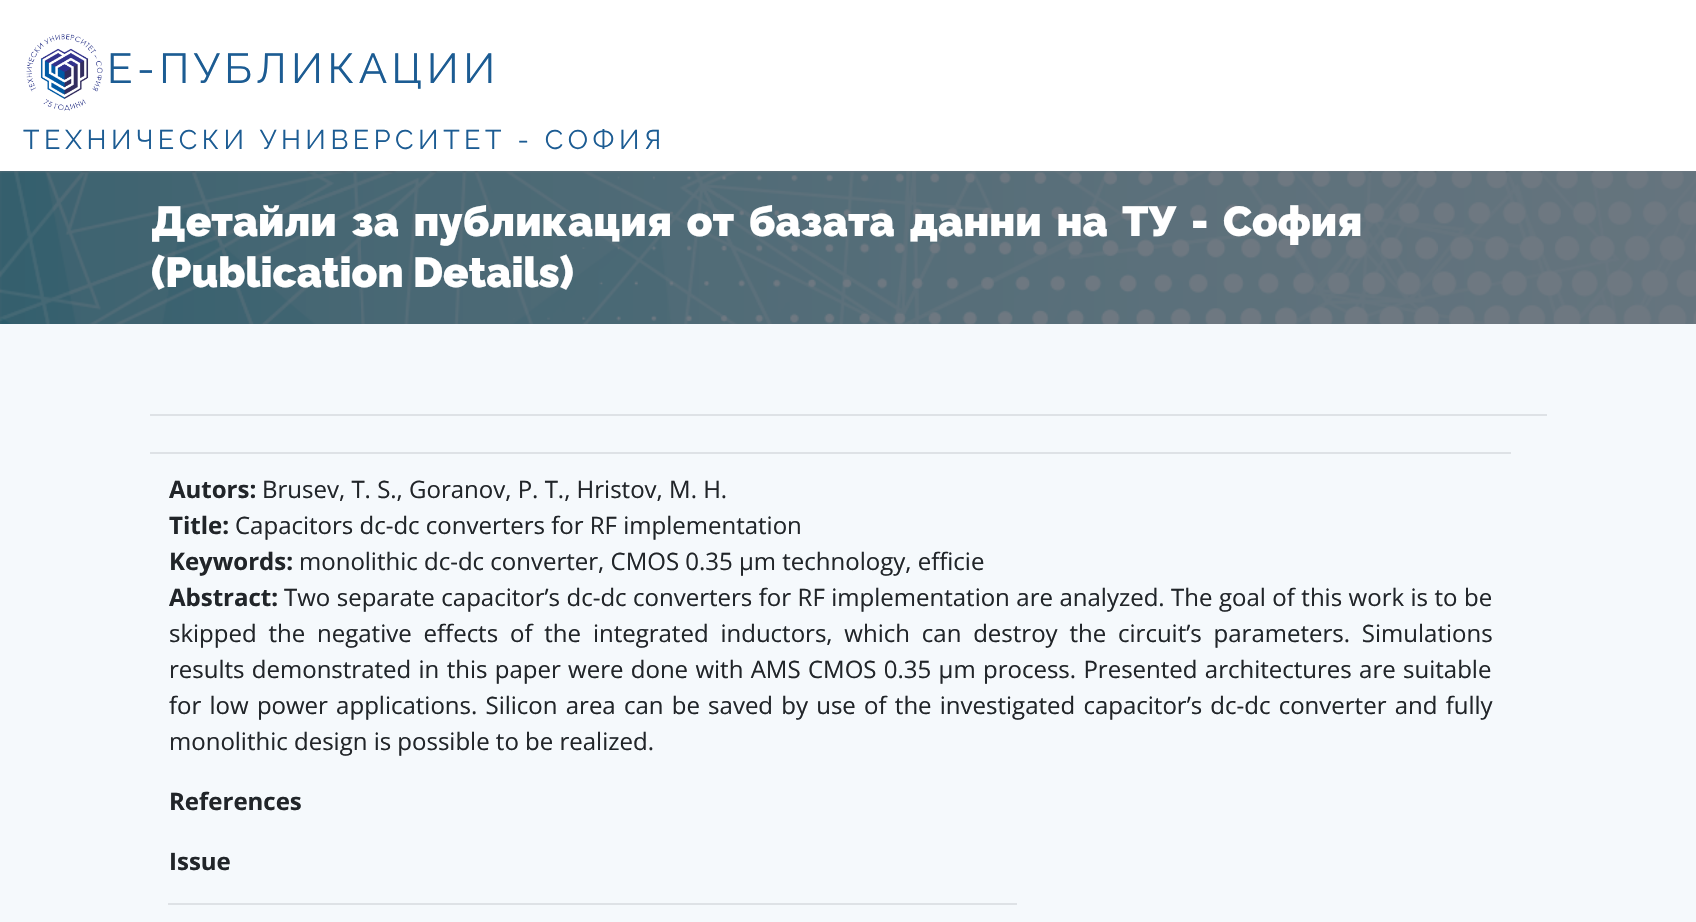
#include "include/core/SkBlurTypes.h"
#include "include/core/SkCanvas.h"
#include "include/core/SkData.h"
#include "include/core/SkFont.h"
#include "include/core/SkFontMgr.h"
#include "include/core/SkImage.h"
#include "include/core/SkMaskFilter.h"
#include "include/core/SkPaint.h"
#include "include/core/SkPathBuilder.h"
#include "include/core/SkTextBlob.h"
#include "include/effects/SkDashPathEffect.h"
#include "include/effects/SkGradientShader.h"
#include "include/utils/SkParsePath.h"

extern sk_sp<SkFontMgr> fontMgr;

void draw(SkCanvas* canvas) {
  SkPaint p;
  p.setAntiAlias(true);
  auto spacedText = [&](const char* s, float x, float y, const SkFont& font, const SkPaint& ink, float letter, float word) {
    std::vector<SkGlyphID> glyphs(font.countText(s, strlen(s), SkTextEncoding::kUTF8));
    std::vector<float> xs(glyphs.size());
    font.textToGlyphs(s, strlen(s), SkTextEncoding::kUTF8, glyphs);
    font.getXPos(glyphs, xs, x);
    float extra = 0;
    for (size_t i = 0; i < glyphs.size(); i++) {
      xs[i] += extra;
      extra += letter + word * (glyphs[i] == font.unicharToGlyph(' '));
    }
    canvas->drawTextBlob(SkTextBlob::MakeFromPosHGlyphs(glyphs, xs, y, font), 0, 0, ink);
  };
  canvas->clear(SK_ColorWHITE);
  canvas->drawImageRect(SkImages::DeferredFromEncodedData(SkData::MakeFromFileName("images/1.png")), SkRect::MakeLTRB(26, 34, 103, 111), SkSamplingOptions());
  canvas->drawImageRect(SkImages::DeferredFromEncodedData(SkData::MakeFromFileName("images/2.png")), SkRect::MakeLTRB(0, 171, 1696, 324), SkSamplingOptions());
  p.setColor(SkColorSetRGB(245, 249, 252));
  canvas->drawRect(SkRect::MakeLTRB(0, 324, 1696, 922), p);
  p.setColor(SkColorSetRGB(222, 226, 230));
  canvas->drawRect(SkRect::MakeLTRB(150, 414, 1547, 416), p);
  canvas->drawRect(SkRect::MakeLTRB(150, 452, 1511, 454), p);
  canvas->drawRect(SkRect::MakeLTRB(168, 903, 1017, 905), p);
  SkFont font1(fontMgr->matchFamilyStyle("Raleway", SkFontStyle::Normal()), 42);
  font1.setSubpixel(true);
  p.setColor(SkColorSetRGB(28, 92, 147));
  spacedText("Е-ПУБЛИКАЦИИ", 107, 83, font1, p, 4.5f, 0);
  SkFont font2(fontMgr->matchFamilyStyle("Raleway", SkFontStyle::Normal()), 27);
  font2.setSubpixel(true);
  spacedText("ТЕХНИЧЕСКИ УНИВЕРСИТЕТ - СОФИЯ", 23, 149, font2, p, 4.5f, 0);
  SkFont font3(fontMgr->matchFamilyStyle("Raleway", SkFontStyle(900, SkFontStyle::kNormal_Width, SkFontStyle::kUpright_Slant)), 42);
  font3.setSubpixel(true);
  p.setColor(SK_ColorWHITE);
  spacedText("Детайли за публикация от базата данни на ТУ - София", 151, 236, font3, p, 0, 5.25f);
  canvas->drawString("(Publication Details)", 151, 287, font3, p);
  SkFont font4(fontMgr->matchFamilyStyle("Open Sans", SkFontStyle::Bold()), 24);
  font4.setSubpixel(true);
  p.setColor(SkColorSetRGB(33, 37, 41));
  canvas->drawString("Autors:", 169, 498, font4, p);
  SkFont font5(fontMgr->matchFamilyStyle("Open Sans", SkFontStyle::Normal()), 24);
  font5.setSubpixel(true);
  canvas->drawString("Brusev, T. S., Goranov, P. T., Hristov, M. H.", 262, 498, font5, p);
  canvas->drawString("Title:", 169, 534, font4, p);
  canvas->drawString("Capacitors dc-dc converters for RF implementation", 235, 534, font5, p);
  canvas->drawString("Keywords:", 169, 570, font4, p);
  canvas->drawString("monolithic dc-dc converter, CMOS 0.35 μm technology, efficie", 299, 570, font5, p);
  canvas->drawString("Abstract:", 169, 606, font4, p);
  spacedText("Two separate capacitor’s dc-dc converters for RF implementation are analyzed. The goal of this work is to be", 284, 606, font5, p, 0, 0.25f);
  spacedText("skipped the negative effects of the integrated inductors, which can destroy the circuit’s parameters. Simulations", 169, 642, font5, p, 0, 5.6f);
  spacedText("results demonstrated in this paper were done with AMS CMOS 0.35 μm process. Presented architectures are suitable", 169, 678, font5, p, 0, 1.1f);
  spacedText("for low power applications. Silicon area can be saved by use of the investigated capacitor’s dc-dc converter and fully", 169, 714, font5, p, 0, 2);
  canvas->drawString("monolithic design is possible to be realized.", 169, 750, font5, p);
  canvas->drawString("References", 169, 810, font4, p);
  canvas->drawString("Issue", 169, 870, font4, p);
}
